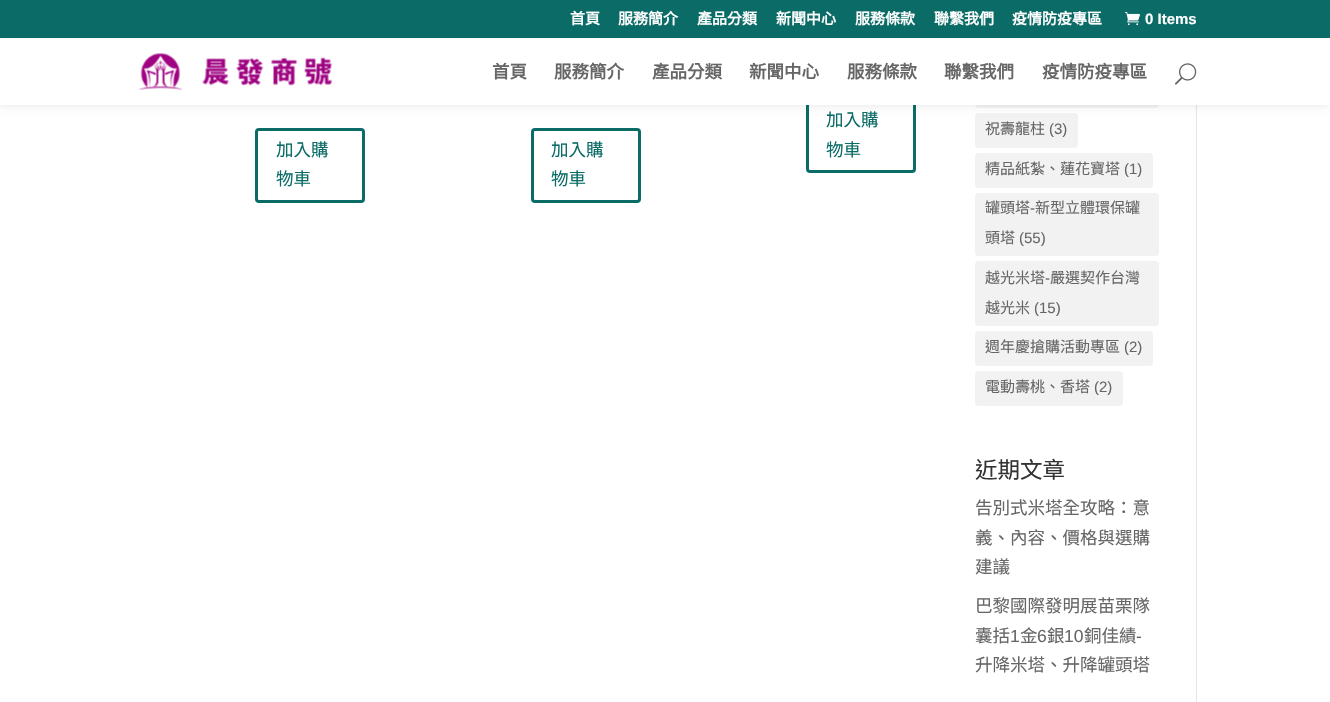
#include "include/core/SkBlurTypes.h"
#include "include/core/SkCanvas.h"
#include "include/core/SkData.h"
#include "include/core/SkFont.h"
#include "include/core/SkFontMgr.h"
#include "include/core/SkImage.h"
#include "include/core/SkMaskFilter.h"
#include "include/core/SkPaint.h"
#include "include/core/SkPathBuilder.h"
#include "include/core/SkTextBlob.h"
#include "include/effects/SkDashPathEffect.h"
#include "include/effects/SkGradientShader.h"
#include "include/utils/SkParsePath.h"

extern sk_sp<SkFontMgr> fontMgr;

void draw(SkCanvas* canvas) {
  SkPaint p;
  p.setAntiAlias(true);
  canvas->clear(SK_ColorWHITE);
  p.setStyle(SkPaint::kStroke_Style);
  p.setStrokeWidth(3);
  p.setColor(SkColorSetRGB(11, 108, 103));
  canvas->drawRoundRect(SkRect::MakeLTRB(807.5f, 99.5f, 914.5f, 171.5f), 2.5f, 2.5f, p);
  p.setStyle(SkPaint::kFill_Style);
  p.setColor(SkColorSetRGB(230, 230, 230));
  canvas->drawRect(SkRect::MakeLTRB(1196, 105, 1197, 702), p);
  p.setColor(SkColorSetRGB(242, 242, 242));
  canvas->drawRoundRect(SkRect::MakeLTRB(975, 44, 1159, 108), 4, 4, p);
  canvas->drawRoundRect(SkRect::MakeLTRB(975, 113, 1078, 148), 4, 4, p);
  p.setColor(SkColorSetARGB(26, 0, 0, 0));
  p.setMaskFilter(SkMaskFilter::MakeBlur(kNormal_SkBlurStyle, 4.5f));
  canvas->drawRect(SkRect::MakeLTRB(0, 38, 1330, 105), p);
  p.setMaskFilter(nullptr);
  p.setColor(SkColorSetRGB(11, 108, 103));
  canvas->drawRect(SkRect::MakeLTRB(0, 0, 1330, 38), p);
  canvas->drawImageRect(SkImages::DeferredFromEncodedData(SkData::MakeFromFileName("images/1.png")), SkRect::MakeLTRB(1125, 12, 1140, 26), SkSamplingOptions());
  p.setColor(SK_ColorWHITE);
  canvas->drawRect(SkRect::MakeLTRB(0, 38, 1330, 105), p);
  canvas->drawImageRect(SkImages::DeferredFromEncodedData(SkData::MakeFromFileName("images/2.png")), SkRect::MakeLTRB(138, 52, 333, 90), SkSamplingOptions());
  canvas->drawImageRect(SkImages::DeferredFromEncodedData(SkData::MakeFromFileName("images/3.png")), SkRect::MakeLTRB(1175, 63, 1197, 85), SkSamplingOptions());
  p.setStyle(SkPaint::kStroke_Style);
  p.setColor(SkColorSetRGB(11, 108, 103));
  canvas->drawRoundRect(SkRect::MakeLTRB(256.5f, 129.5f, 363.5f, 201.5f), 2.5f, 2.5f, p);
  canvas->drawRoundRect(SkRect::MakeLTRB(532.5f, 129.5f, 639.5f, 201.5f), 2.5f, 2.5f, p);
  p.setStyle(SkPaint::kFill_Style);
  p.setColor(SkColorSetRGB(242, 242, 242));
  canvas->drawRoundRect(SkRect::MakeLTRB(975, 153, 1153, 188), 4, 4, p);
  canvas->drawRoundRect(SkRect::MakeLTRB(975, 193, 1159, 256), 4, 4, p);
  canvas->drawRoundRect(SkRect::MakeLTRB(975, 261, 1159, 326), 4, 4, p);
  canvas->drawRoundRect(SkRect::MakeLTRB(975, 331, 1153, 366), 4, 4, p);
  canvas->drawRoundRect(SkRect::MakeLTRB(975, 371, 1123, 406), 4, 4, p);
  SkFont font1(fontMgr->matchFamilyStyle("Noto Sans CJK TC", SkFontStyle::Bold()), 15);
  font1.setSubpixel(true);
  p.setColor(SK_ColorWHITE);
  canvas->drawString("首頁", 570, 24, font1, p);
  canvas->drawString("服務簡介", 618, 24, font1, p);
  canvas->drawString("產品分類", 697, 24, font1, p);
  canvas->drawString("新聞中心", 776, 24, font1, p);
  canvas->drawString("服務條款", 855, 24, font1, p);
  canvas->drawString("聯繫我們", 934, 24, font1, p);
  canvas->drawString("疫情防疫專區", 1012, 24, font1, p);
  SkFont font2(fontMgr->matchFamilyStyle("Liberation Sans", SkFontStyle::Bold()), 15);
  font2.setSubpixel(true);
  canvas->drawString("0 Items", 1145, 24, font2, p);
  SkFont font3(fontMgr->matchFamilyStyle("Noto Sans CJK TC", SkFontStyle::Bold()), 17.5f);
  font3.setSubpixel(true);
  p.setColor(SkColorSetRGB(102, 102, 102));
  canvas->drawString("首頁", 492, 78, font3, p);
  canvas->drawString("服務簡介", 554, 78, font3, p);
  canvas->drawString("產品分類", 652, 78, font3, p);
  canvas->drawString("新聞中心", 749, 78, font3, p);
  canvas->drawString("服務條款", 847, 78, font3, p);
  canvas->drawString("聯繫我們", 944, 78, font3, p);
  canvas->drawString("疫情防疫專區", 1042, 78, font3, p);
  SkFont font4(fontMgr->matchFamilyStyle("Noto Sans CJK TC", SkFontStyle::Normal()), 17.5f);
  font4.setSubpixel(true);
  p.setColor(SkColorSetRGB(11, 108, 103));
  canvas->drawString("加入購", 826, 126, font4, p);
  canvas->drawString("物車", 826, 156, font4, p);
  canvas->drawString("加入購", 276, 156, font4, p);
  canvas->drawString("物車", 276, 185, font4, p);
  canvas->drawString("加入購", 551, 156, font4, p);
  canvas->drawString("物車", 551, 185, font4, p);
  SkFont font5(fontMgr->matchFamilyStyle("Noto Sans CJK TC", SkFontStyle::Normal()), 15);
  font5.setSubpixel(true);
  p.setColor(SkColorSetRGB(102, 102, 102));
  canvas->drawString("祝壽龍柱", 985, 134, font5, p);
  SkFont font6(fontMgr->matchFamilyStyle("Liberation Sans", SkFontStyle::Normal()), 15);
  font6.setSubpixel(true);
  canvas->drawString("(3)", 1049, 134, font6, p);
  canvas->drawString("精品紙紮、蓮花寶塔", 985, 174, font5, p);
  canvas->drawString("(1)", 1124, 174, font6, p);
  canvas->drawString("罐頭塔", 985, 213, font5, p);
  canvas->drawString("-", 1030, 213, font6, p);
  canvas->drawString("新型立體環保罐", 1035, 213, font5, p);
  canvas->drawString("頭塔", 985, 243, font5, p);
  canvas->drawString("(55)", 1019, 243, font6, p);
  canvas->drawString("越光米塔", 985, 283, font5, p);
  canvas->drawString("-", 1045, 283, font6, p);
  canvas->drawString("嚴選契作台灣", 1050, 283, font5, p);
  canvas->drawString("越光米", 985, 313, font5, p);
  canvas->drawString("(15)", 1034, 313, font6, p);
  canvas->drawString("週年慶搶購活動專區", 985, 352, font5, p);
  canvas->drawString("(2)", 1124, 352, font6, p);
  canvas->drawString("電動壽桃、香塔", 985, 392, font5, p);
  canvas->drawString("(2)", 1094, 392, font6, p);
  SkFont font7(fontMgr->matchFamilyStyle("Noto Sans CJK TC", SkFontStyle::Normal()), 22.5f);
  font7.setSubpixel(true);
  p.setColor(SkColorSetRGB(51, 51, 51));
  canvas->drawString("近期文章", 975, 478, font7, p);
  p.setColor(SkColorSetRGB(102, 102, 102));
  canvas->drawString("告別式米塔全攻略：意", 975, 514, font4, p);
  canvas->drawString("義、內容、價格與選購", 975, 544, font4, p);
  canvas->drawString("建議", 975, 573, font4, p);
  canvas->drawString("巴黎國際發明展苗栗隊", 975, 612, font4, p);
  canvas->drawString("囊括", 975, 642, font4, p);
  SkFont font8(fontMgr->matchFamilyStyle("Liberation Sans", SkFontStyle::Normal()), 17.5f);
  font8.setSubpixel(true);
  canvas->drawString("1", 1010, 642, font8, p);
  canvas->drawString("金", 1020, 642, font4, p);
  canvas->drawString("6", 1037, 642, font8, p);
  canvas->drawString("銀", 1047, 642, font4, p);
  canvas->drawString("10", 1064, 642, font8, p);
  canvas->drawString("銅佳績", 1084, 642, font4, p);
  canvas->drawString("-", 1136, 642, font8, p);
  canvas->drawString("升降米塔、升降罐頭塔", 975, 671, font4, p);
}
